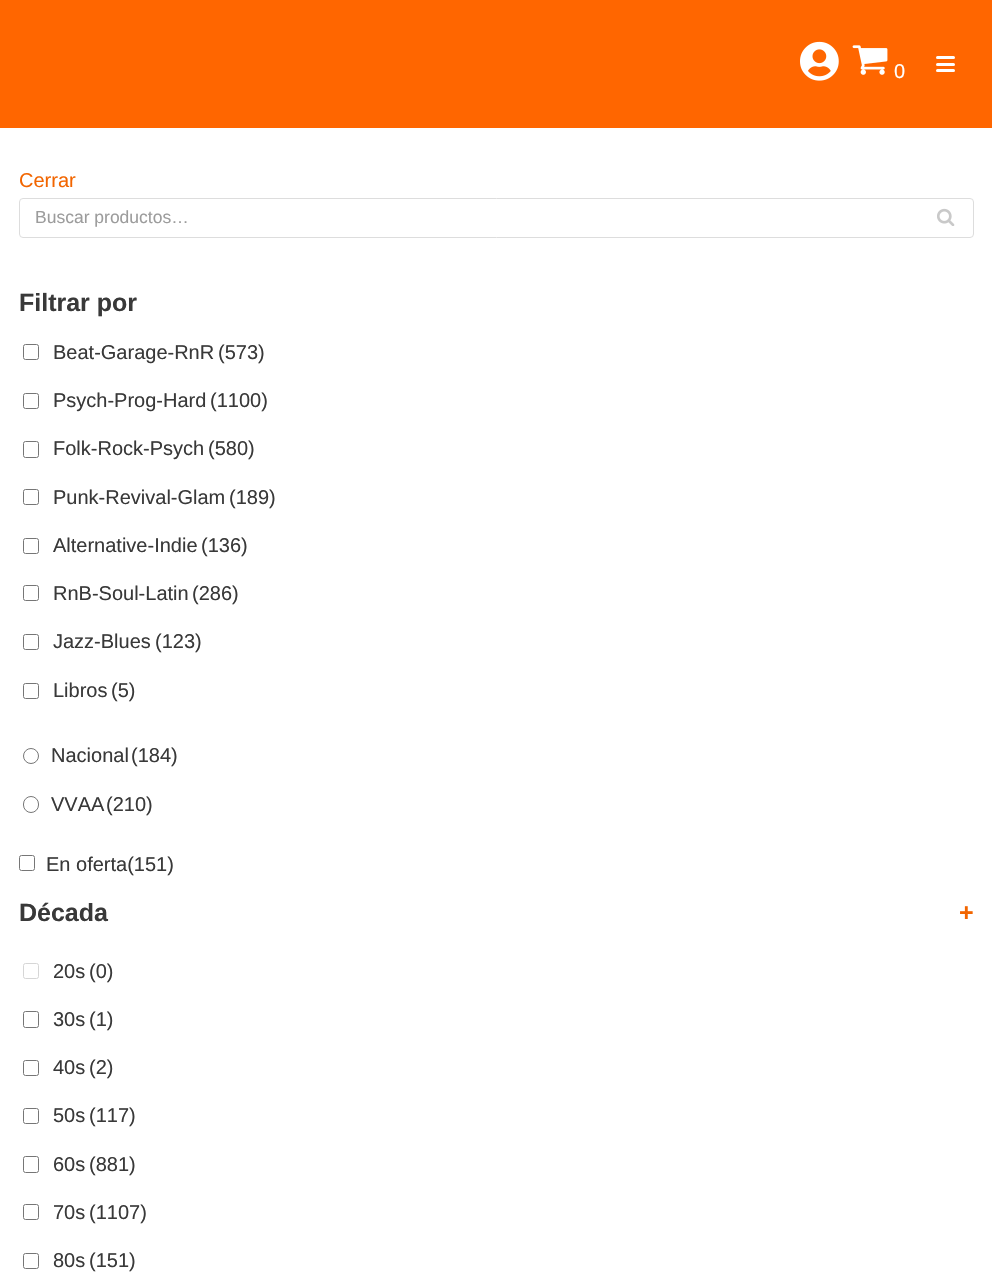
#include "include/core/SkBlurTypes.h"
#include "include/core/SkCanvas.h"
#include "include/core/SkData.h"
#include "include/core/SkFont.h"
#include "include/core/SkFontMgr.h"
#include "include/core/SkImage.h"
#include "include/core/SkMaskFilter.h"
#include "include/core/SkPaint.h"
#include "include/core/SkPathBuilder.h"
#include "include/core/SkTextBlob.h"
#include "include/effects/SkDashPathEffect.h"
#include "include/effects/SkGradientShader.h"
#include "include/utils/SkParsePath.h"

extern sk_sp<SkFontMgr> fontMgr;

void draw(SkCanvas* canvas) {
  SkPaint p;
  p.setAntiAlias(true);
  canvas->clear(SK_ColorWHITE);
  p.setColor(SkColorSetRGB(255, 102, 0));
  canvas->drawRect(SkRect::MakeLTRB(0, 0, 992, 128), p);
  canvas->drawImageRect(SkImages::DeferredFromEncodedData(SkData::MakeFromFileName("images/1.png")), SkRect::MakeLTRB(800, 41, 839, 81), SkSamplingOptions());
  canvas->drawImageRect(SkImages::DeferredFromEncodedData(SkData::MakeFromFileName("images/2.png")), SkRect::MakeLTRB(852, 45, 888, 75), SkSamplingOptions());
  p.setColor(SK_ColorWHITE);
  canvas->drawRoundRect(SkRect::MakeLTRB(936, 56, 955, 59), 1.5f, 1.5f, p);
  canvas->drawRoundRect(SkRect::MakeLTRB(936, 63, 955, 66), 1.5f, 1.5f, p);
  canvas->drawRoundRect(SkRect::MakeLTRB(936, 69, 955, 72), 1.5f, 1.5f, p);
  p.setStyle(SkPaint::kStroke_Style);
  p.setStrokeWidth(1);
  p.setColor(SkColorSetRGB(221, 221, 221));
  canvas->drawRoundRect(SkRect::MakeLTRB(19.5f, 198.5f, 973.5f, 237.5f), 3.5f, 3.5f, p);
  canvas->drawImageRect(SkImages::DeferredFromEncodedData(SkData::MakeFromFileName("images/3.png")), SkRect::MakeLTRB(937, 208, 955, 226), SkSamplingOptions());
  p.setColor(SkColorSetRGB(118, 118, 118));
  canvas->drawRoundRect(SkRect::MakeLTRB(23.5f, 344.5f, 38.5f, 359.5f), 2, 2, p);
  canvas->drawRoundRect(SkRect::MakeLTRB(23.5f, 393.5f, 38.5f, 408.5f), 2, 2, p);
  canvas->drawRoundRect(SkRect::MakeLTRB(23.5f, 441.5f, 38.5f, 457.5f), 2, 2, p);
  canvas->drawRoundRect(SkRect::MakeLTRB(23.5f, 489.5f, 38.5f, 504.5f), 2, 2, p);
  canvas->drawRoundRect(SkRect::MakeLTRB(23.5f, 538.5f, 38.5f, 553.5f), 2, 2, p);
  canvas->drawRoundRect(SkRect::MakeLTRB(23.5f, 585.5f, 38.5f, 600.5f), 2, 2, p);
  canvas->drawRoundRect(SkRect::MakeLTRB(23.5f, 634.5f, 38.5f, 649.5f), 2, 2, p);
  canvas->drawRoundRect(SkRect::MakeLTRB(23.5f, 683.5f, 38.5f, 698.5f), 2, 2, p);
  canvas->drawCircle(31, 756, 7.5f, p);
  canvas->drawRoundRect(SkRect::MakeLTRB(23.5f, 796.5f, 38.5f, 812.5f), 7.5f, 7.5f, p);
  canvas->drawRoundRect(SkRect::MakeLTRB(19.5f, 855.5f, 34.5f, 870.5f), 2, 2, p);
  p.setColor(SkColorSetRGB(214, 214, 214));
  canvas->drawRoundRect(SkRect::MakeLTRB(23.5f, 963.5f, 38.5f, 978.5f), 2, 2, p);
  p.setColor(SkColorSetRGB(118, 118, 118));
  canvas->drawRoundRect(SkRect::MakeLTRB(23.5f, 1011.5f, 38.5f, 1027.5f), 2, 2, p);
  canvas->drawRoundRect(SkRect::MakeLTRB(23.5f, 1060.5f, 38.5f, 1075.5f), 2, 2, p);
  canvas->drawRoundRect(SkRect::MakeLTRB(23.5f, 1108.5f, 38.5f, 1123.5f), 2, 2, p);
  canvas->drawRoundRect(SkRect::MakeLTRB(23.5f, 1156.5f, 38.5f, 1172.5f), 2, 2, p);
  canvas->drawRoundRect(SkRect::MakeLTRB(23.5f, 1204.5f, 38.5f, 1219.5f), 2, 2, p);
  canvas->drawRoundRect(SkRect::MakeLTRB(23.5f, 1253.5f, 38.5f, 1268.5f), 2, 2, p);
  SkFont font1(fontMgr->matchFamilyStyle("Liberation Sans", SkFontStyle::Normal()), 20);
  font1.setSubpixel(true);
  p.setStyle(SkPaint::kFill_Style);
  p.setColor(SK_ColorWHITE);
  canvas->drawString("0", 894, 78, font1, p);
  p.setColor(SkColorSetRGB(242, 101, 0));
  canvas->drawString("Cerrar", 19, 187, font1, p);
  SkFont font2(fontMgr->matchFamilyStyle("Liberation Sans", SkFontStyle::Normal()), 17.5f);
  font2.setSubpixel(true);
  p.setColor(SkColorSetRGB(156, 156, 156));
  canvas->drawString("Buscar productos…", 35, 223, font2, p);
  SkFont font3(fontMgr->matchFamilyStyle("Liberation Sans", SkFontStyle::Bold()), 25);
  font3.setSubpixel(true);
  p.setColor(SkColorSetRGB(57, 57, 57));
  canvas->drawString("Filtrar por", 19, 311, font3, p);
  canvas->drawString("Beat-Garage-RnR", 53, 359, font1, p);
  canvas->drawString("(573)", 218, 359, font1, p);
  canvas->drawString("Psych-Prog-Hard", 53, 407, font1, p);
  canvas->drawString("(1100)", 210, 407, font1, p);
  canvas->drawString("Folk-Rock-Psych", 53, 455, font1, p);
  canvas->drawString("(580)", 208, 455, font1, p);
  canvas->drawString("Punk-Revival-Glam", 53, 504, font1, p);
  canvas->drawString("(189)", 229, 504, font1, p);
  canvas->drawString("Alternative-Indie", 53, 552, font1, p);
  canvas->drawString("(136)", 201, 552, font1, p);
  canvas->drawString("RnB-Soul-Latin", 53, 600, font1, p);
  canvas->drawString("(286)", 192, 600, font1, p);
  canvas->drawString("Jazz-Blues", 53, 648, font1, p);
  canvas->drawString("(123)", 155, 648, font1, p);
  canvas->drawString("Libros", 53, 697, font1, p);
  canvas->drawString("(5)", 111, 697, font1, p);
  canvas->drawString("Nacional", 51, 762, font1, p);
  canvas->drawString("(184)", 131, 762, font1, p);
  canvas->drawString("VVAA", 51, 811, font1, p);
  canvas->drawString("(210)", 106, 811, font1, p);
  canvas->drawString("En oferta(151)", 46, 871, font1, p);
  canvas->drawString("Década", 19, 921, font3, p);
  p.setColor(SkColorSetRGB(242, 101, 0));
  canvas->drawString("+", 959, 921, font3, p);
  p.setColor(SkColorSetRGB(57, 57, 57));
  canvas->drawString("20s", 53, 978, font1, p);
  canvas->drawString("(0)", 89, 978, font1, p);
  canvas->drawString("30s", 53, 1026, font1, p);
  canvas->drawString("(1)", 89, 1026, font1, p);
  canvas->drawString("40s", 53, 1074, font1, p);
  canvas->drawString("(2)", 89, 1074, font1, p);
  canvas->drawString("50s", 53, 1122, font1, p);
  canvas->drawString("(117)", 89, 1122, font1, p);
  canvas->drawString("60s", 53, 1171, font1, p);
  canvas->drawString("(881)", 89, 1171, font1, p);
  canvas->drawString("70s", 53, 1219, font1, p);
  canvas->drawString("(1107)", 89, 1219, font1, p);
  canvas->drawString("80s", 53, 1267, font1, p);
  canvas->drawString("(151)", 89, 1267, font1, p);
}
